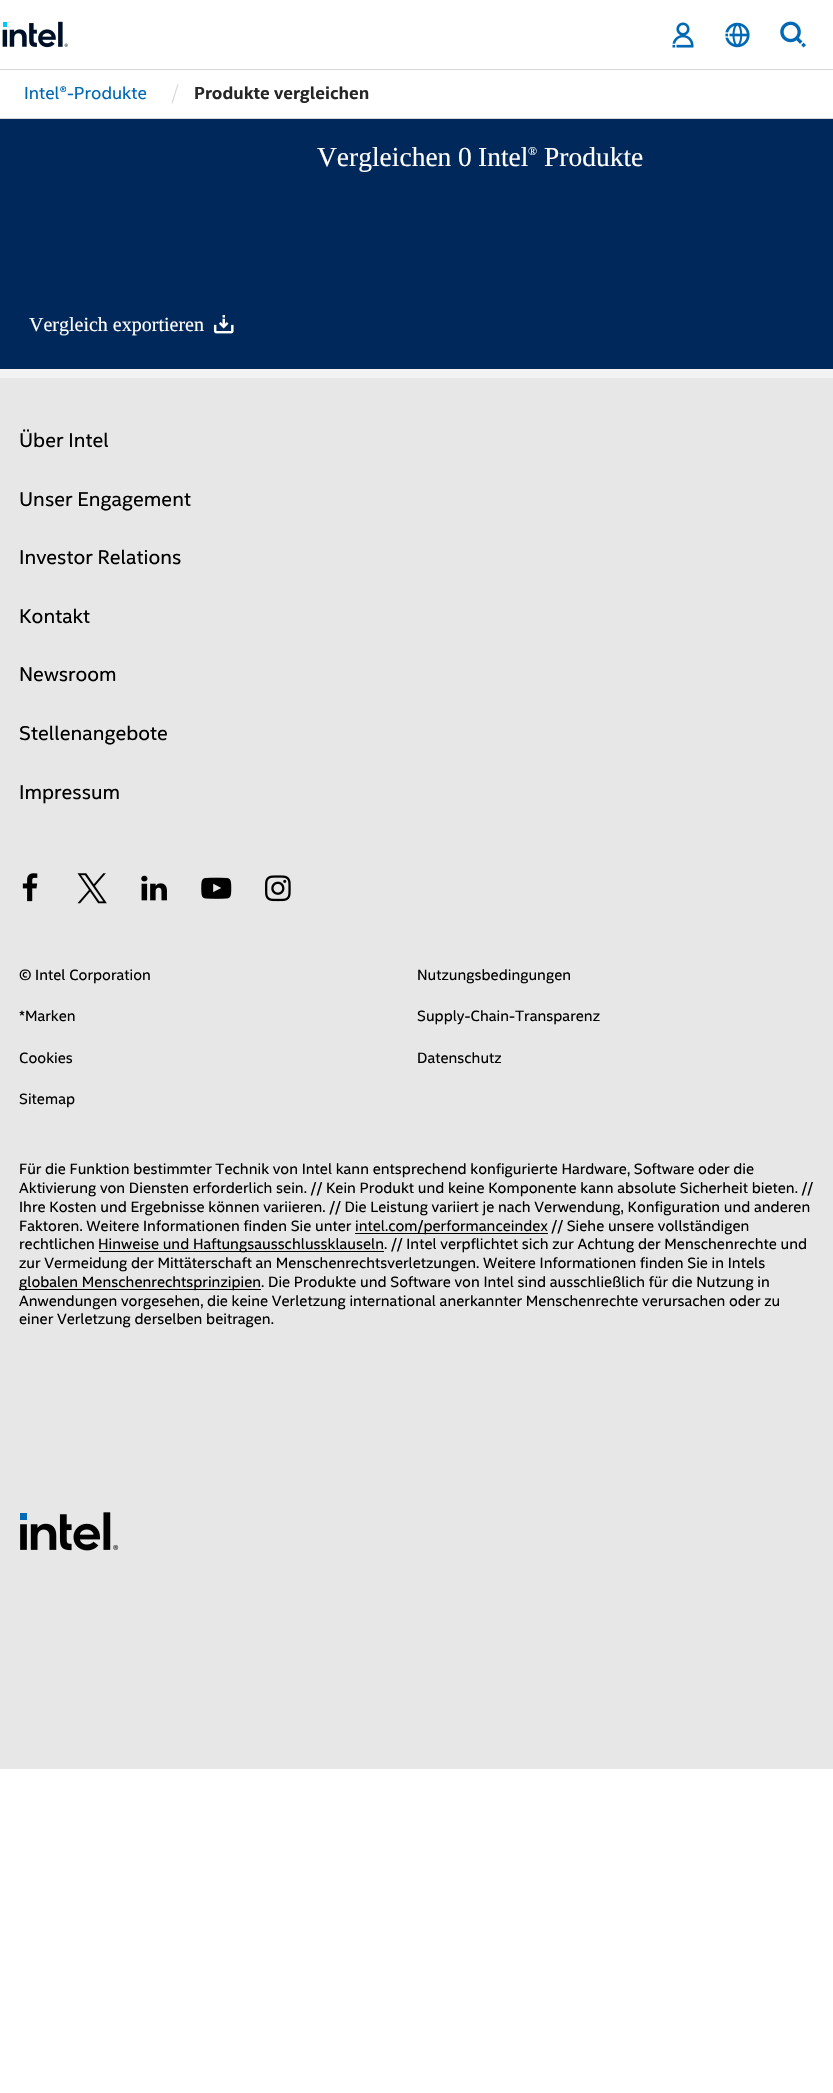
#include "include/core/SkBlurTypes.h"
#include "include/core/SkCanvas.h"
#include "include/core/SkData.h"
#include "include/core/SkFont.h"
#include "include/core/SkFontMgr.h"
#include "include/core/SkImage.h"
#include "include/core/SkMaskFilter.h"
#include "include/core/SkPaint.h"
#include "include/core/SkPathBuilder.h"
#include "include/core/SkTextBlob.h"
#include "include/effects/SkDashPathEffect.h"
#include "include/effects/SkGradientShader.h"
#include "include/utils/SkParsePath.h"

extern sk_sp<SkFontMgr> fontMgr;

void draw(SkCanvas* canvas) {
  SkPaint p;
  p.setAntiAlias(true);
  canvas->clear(SK_ColorWHITE);
  p.setColor(SkColorSetRGB(215, 215, 215));
  canvas->drawRect(SkRect::MakeLTRB(0, 69, 833, 70), p);
  canvas->drawImageRect(SkImages::DeferredFromEncodedData(SkData::MakeFromFileName("images/1.png")), SkRect::MakeLTRB(2, 21, 68, 48), SkSamplingOptions());
  canvas->drawImageRect(SkImages::DeferredFromEncodedData(SkData::MakeFromFileName("images/2.png")), SkRect::MakeLTRB(672, 22, 694, 48), SkSamplingOptions());
  canvas->drawImageRect(SkImages::DeferredFromEncodedData(SkData::MakeFromFileName("images/3.png")), SkRect::MakeLTRB(725, 22, 750, 48), SkSamplingOptions());
  canvas->drawImageRect(SkImages::DeferredFromEncodedData(SkData::MakeFromFileName("images/4.png")), SkRect::MakeLTRB(780, 21, 806, 48), SkSamplingOptions());
  canvas->drawRect(SkRect::MakeLTRB(0, 118, 833, 119), p);
  canvas->drawPath(SkPathBuilder().moveTo(177.5f, 84).lineTo(178.5f, 84.5f).lineTo(172.5f, 103.5f).lineTo(171.5f, 103).close().detach(), p);
  p.setColor(SkColorSetRGB(243, 243, 243));
  canvas->drawRect(SkRect::MakeLTRB(0, 369, 833, 378), p);
  p.setColor(SkColorSetRGB(0, 40, 90));
  canvas->drawRect(SkRect::MakeLTRB(0, 119, 833, 369), p);
  canvas->drawImageRect(SkImages::DeferredFromEncodedData(SkData::MakeFromFileName("images/5.png")), SkRect::MakeLTRB(213, 315, 234, 334), SkSamplingOptions());
  p.setColor(SkColorSetRGB(231, 231, 231));
  canvas->drawRect(SkRect::MakeLTRB(0, 378, 833, 1769), p);
  canvas->drawImageRect(SkImages::DeferredFromEncodedData(SkData::MakeFromFileName("images/6.png")), SkRect::MakeLTRB(22, 873, 38, 902), SkSamplingOptions());
  canvas->drawImageRect(SkImages::DeferredFromEncodedData(SkData::MakeFromFileName("images/7.png")), SkRect::MakeLTRB(77, 873, 107, 904), SkSamplingOptions());
  canvas->drawImageRect(SkImages::DeferredFromEncodedData(SkData::MakeFromFileName("images/8.png")), SkRect::MakeLTRB(141, 875, 167, 901), SkSamplingOptions());
  canvas->drawImageRect(SkImages::DeferredFromEncodedData(SkData::MakeFromFileName("images/9.png")), SkRect::MakeLTRB(201, 877, 232, 899), SkSamplingOptions());
  canvas->drawImageRect(SkImages::DeferredFromEncodedData(SkData::MakeFromFileName("images/10.png")), SkRect::MakeLTRB(265, 875, 291, 902), SkSamplingOptions());
  p.setColor(SK_ColorBLACK);
  canvas->drawRect(SkRect::MakeLTRB(355, 1233, 548, 1234), p);
  canvas->drawRect(SkRect::MakeLTRB(99, 1251, 384, 1252), p);
  canvas->drawRect(SkRect::MakeLTRB(19, 1289, 261, 1290), p);
  canvas->drawImageRect(SkImages::DeferredFromEncodedData(SkData::MakeFromFileName("images/11.png")), SkRect::MakeLTRB(20, 1512, 119, 1551), SkSamplingOptions());
  SkFont font1(fontMgr->matchFamilyStyle("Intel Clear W", SkFontStyle::Normal()), 17.5f);
  font1.setSubpixel(true);
  p.setColor(SkColorSetRGB(0, 104, 181));
  canvas->drawString("Intel®-Produkte", 24, 99, font1, p);
  SkFont font2(fontMgr->matchFamilyStyle("Intel Clear W", SkFontStyle::Bold()), 17.5f);
  font2.setSubpixel(true);
  p.setColor(SkColorSetRGB(38, 38, 38));
  canvas->drawString("Produkte vergleichen", 194, 99, font2, p);
  SkFont font3(fontMgr->matchFamilyStyle("Liberation Serif", SkFontStyle::Normal()), 27.5f);
  font3.setSubpixel(true);
  p.setColor(SK_ColorWHITE);
  canvas->drawString("Vergleichen", 317, 166, font3, p);
  canvas->drawString("0", 458, 166, font3, p);
  canvas->drawString("Intel", 478, 166, font3, p);
  SkFont font4(fontMgr->matchFamilyStyle("Liberation Serif", SkFontStyle::Normal()), 12);
  font4.setSubpixel(true);
  canvas->drawString("®", 528, 155, font4, p);
  canvas->drawString("Produkte", 544, 166, font3, p);
  SkFont font5(fontMgr->matchFamilyStyle("Liberation Serif", SkFontStyle::Normal()), 20);
  font5.setSubpixel(true);
  canvas->drawString("Vergleich exportieren", 29, 331, font5, p);
  SkFont font6(fontMgr->matchFamilyStyle("Intel Clear W", SkFontStyle::Normal()), 20);
  font6.setSubpixel(true);
  p.setColor(SK_ColorBLACK);
  canvas->drawString("Über Intel", 19, 447, font6, p);
  canvas->drawString("Unser Engagement", 19, 506, font6, p);
  canvas->drawString("Investor Relations", 19, 564, font6, p);
  canvas->drawString("Kontakt", 19, 623, font6, p);
  canvas->drawString("Newsroom", 19, 681, font6, p);
  canvas->drawString("Stellenangebote", 19, 740, font6, p);
  canvas->drawString("Impressum", 19, 799, font6, p);
  SkFont font7(fontMgr->matchFamilyStyle("Intel Clear W", SkFontStyle::Normal()), 15);
  font7.setSubpixel(true);
  canvas->drawString("© Intel Corporation", 19, 980, font7, p);
  canvas->drawString("Nutzungsbedingungen", 417, 980, font7, p);
  canvas->drawString("*Marken", 19, 1021, font7, p);
  canvas->drawString("Supply-Chain-Transparenz", 417, 1021, font7, p);
  canvas->drawString("Cookies", 19, 1063, font7, p);
  canvas->drawString("Datenschutz", 417, 1063, font7, p);
  canvas->drawString("Sitemap", 19, 1104, font7, p);
  canvas->drawString("Für die Funktion bestimmter Technik von Intel kann entsprechend konfigurierte Hardware, Software oder die", 19, 1174, font7, p);
  canvas->drawString("Aktivierung von Diensten erforderlich sein. // Kein Produkt und keine Komponente kann absolute Sicherheit bieten. //", 19, 1193, font7, p);
  canvas->drawString("Ihre Kosten und Ergebnisse können variieren. // Die Leistung variiert je nach Verwendung, Konfiguration und anderen", 19, 1212, font7, p);
  canvas->drawString("Faktoren. Weitere Informationen finden Sie unter", 19, 1231, font7, p);
  canvas->drawString("intel.com/performanceindex // Siehe unsere vollständigen", 355, 1231, font7, p);
  canvas->drawString("rechtlichen", 19, 1249, font7, p);
  canvas->drawString("Hinweise und Haftungsausschlussklauseln. // Intel verpflichtet sich zur Achtung der Menschenrechte und", 98, 1249, font7, p);
  canvas->drawString("zur Vermeidung der Mittäterschaft an Menschenrechtsverletzungen. Weitere Informationen finden Sie in Intels", 19, 1268, font7, p);
  canvas->drawString("globalen Menschenrechtsprinzipien. Die Produkte und Software von Intel sind ausschließlich für die Nutzung in", 19, 1287, font7, p);
  canvas->drawString("Anwendungen vorgesehen, die keine Verletzung international anerkannter Menschenrechte verursachen oder zu", 19, 1306, font7, p);
  canvas->drawString("einer Verletzung derselben beitragen.", 19, 1324, font7, p);
}
